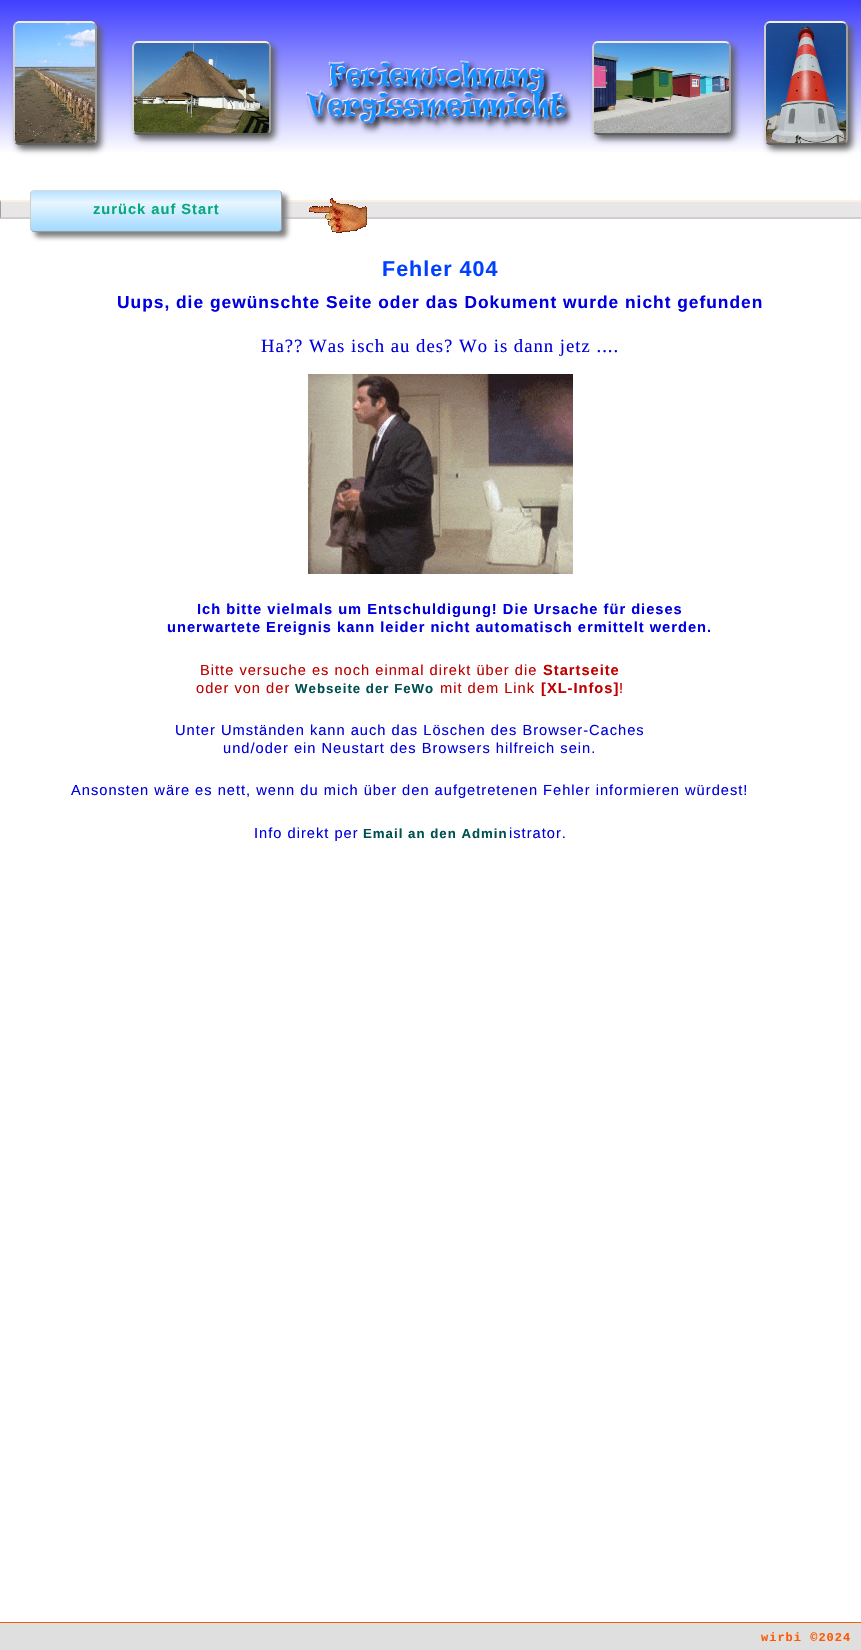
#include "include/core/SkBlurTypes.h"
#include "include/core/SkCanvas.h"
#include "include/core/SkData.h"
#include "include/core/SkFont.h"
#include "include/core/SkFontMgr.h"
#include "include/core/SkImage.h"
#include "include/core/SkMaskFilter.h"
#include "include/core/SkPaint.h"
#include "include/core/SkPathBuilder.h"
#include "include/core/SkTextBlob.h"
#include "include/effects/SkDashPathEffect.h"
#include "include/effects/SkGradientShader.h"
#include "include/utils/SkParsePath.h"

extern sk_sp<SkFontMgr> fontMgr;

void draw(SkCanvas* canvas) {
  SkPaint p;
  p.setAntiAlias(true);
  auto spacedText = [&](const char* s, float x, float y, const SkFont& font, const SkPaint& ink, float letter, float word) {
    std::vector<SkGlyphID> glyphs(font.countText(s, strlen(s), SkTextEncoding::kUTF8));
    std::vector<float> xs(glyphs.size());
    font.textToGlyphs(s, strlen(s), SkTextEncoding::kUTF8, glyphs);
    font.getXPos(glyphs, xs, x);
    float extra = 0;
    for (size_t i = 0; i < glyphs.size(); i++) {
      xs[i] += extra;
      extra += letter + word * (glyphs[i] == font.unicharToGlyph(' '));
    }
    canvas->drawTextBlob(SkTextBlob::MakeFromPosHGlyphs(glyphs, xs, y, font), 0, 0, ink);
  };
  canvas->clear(SK_ColorWHITE);
  {
    const SkColor colors[] = {SkColorSetRGB(63, 63, 255), SK_ColorWHITE, SK_ColorWHITE};
    const float stops[] = {0, 0.75f, 1};
    const SkPoint ends[] = {{431, 0}, {431, 205}};
    p.setShader(SkGradientShader::MakeLinear(ends, colors, stops, 3, SkTileMode::kClamp));
    p.setAlpha(255);
  }
  canvas->drawRect(SkRect::MakeLTRB(0, 0, 861, 152), p);
  p.setShader(nullptr);
  p.setColor(SkColorSetRGB(95, 95, 95));
  p.setMaskFilter(SkMaskFilter::MakeBlur(kNormal_SkBlurStyle, 3));
  canvas->drawRoundRect(SkRect::MakeLTRB(17, 25, 101, 149), 6, 6, p);
  p.setMaskFilter(nullptr);
  p.setMaskFilter(SkMaskFilter::MakeBlur(kNormal_SkBlurStyle, 3));
  canvas->drawRoundRect(SkRect::MakeLTRB(768, 25, 852, 149), 6, 6, p);
  p.setMaskFilter(nullptr);
  p.setStyle(SkPaint::kStroke_Style);
  p.setStrokeWidth(2);
  p.setColor(SkColorSetRGB(239, 239, 239));
  canvas->drawPath(SkPathBuilder().moveTo(15.5f, 23.5f).lineTo(18.5f, 22).lineTo(91.5f, 22).lineTo(94.5f, 23.5f).detach(), p);
  canvas->drawPath(SkPathBuilder().moveTo(766.5f, 23.5f).lineTo(769.5f, 22).lineTo(842.5f, 22).lineTo(845.5f, 23.5f).detach(), p);
  p.setColor(SkColorSetRGB(159, 159, 159));
  canvas->drawPath(SkPathBuilder().moveTo(94.5f, 23.5f).lineTo(96, 26.5f).lineTo(96, 139.5f).lineTo(94.5f, 142.5f).detach(), p);
  p.setColor(SkColorSetRGB(95, 95, 95));
  canvas->drawPath(SkPathBuilder().moveTo(94.5f, 142.5f).lineTo(91.5f, 144).lineTo(18.5f, 144).lineTo(15.5f, 142.5f).detach(), p);
  p.setColor(SkColorSetRGB(207, 207, 207));
  canvas->drawPath(SkPathBuilder().moveTo(15.5f, 142.5f).lineTo(14, 139.5f).lineTo(14, 26.5f).lineTo(15.5f, 23.5f).detach(), p);
  canvas->drawImageRect(SkImages::DeferredFromEncodedData(SkData::MakeFromFileName("images/1.png")), SkRect::MakeLTRB(15, 23, 95, 143), SkSamplingOptions());
  p.setColor(SkColorSetRGB(159, 159, 159));
  canvas->drawPath(SkPathBuilder().moveTo(845.5f, 23.5f).lineTo(847, 26.5f).lineTo(847, 139.5f).lineTo(845.5f, 142.5f).detach(), p);
  p.setColor(SkColorSetRGB(95, 95, 95));
  canvas->drawPath(SkPathBuilder().moveTo(845.5f, 142.5f).lineTo(842.5f, 144).lineTo(769.5f, 144).lineTo(766.5f, 142.5f).detach(), p);
  p.setColor(SkColorSetRGB(207, 207, 207));
  canvas->drawPath(SkPathBuilder().moveTo(766.5f, 142.5f).lineTo(765, 139.5f).lineTo(765, 26.5f).lineTo(766.5f, 23.5f).detach(), p);
  canvas->drawImageRect(SkImages::DeferredFromEncodedData(SkData::MakeFromFileName("images/2.png")), SkRect::MakeLTRB(766, 23, 846, 143), SkSamplingOptions());
  p.setStyle(SkPaint::kFill_Style);
  p.setColor(SkColorSetRGB(95, 95, 95));
  p.setMaskFilter(SkMaskFilter::MakeBlur(kNormal_SkBlurStyle, 3));
  canvas->drawRoundRect(SkRect::MakeLTRB(136, 45, 275, 139), 6, 6, p);
  p.setMaskFilter(nullptr);
  p.setMaskFilter(SkMaskFilter::MakeBlur(kNormal_SkBlurStyle, 3));
  canvas->drawRoundRect(SkRect::MakeLTRB(596, 45, 735, 139), 6, 6, p);
  p.setMaskFilter(nullptr);
  p.setStyle(SkPaint::kStroke_Style);
  p.setColor(SkColorSetRGB(239, 239, 239));
  canvas->drawPath(SkPathBuilder().moveTo(134.5f, 43.5f).cubicTo(135.5f, 42.5f, 136.5f, 42, 138, 42).lineTo(265, 42).cubicTo(266.5f, 42, 267.5f, 42.5f, 268.5f, 43.5f).detach(), p);
  canvas->drawPath(SkPathBuilder().moveTo(594.5f, 43.5f).cubicTo(595.5f, 42.5f, 596.5f, 42, 598, 42).lineTo(725, 42).cubicTo(726.5f, 42, 727.5f, 42.5f, 728.5f, 43.5f).detach(), p);
  p.setColor(SkColorSetRGB(159, 159, 159));
  canvas->drawPath(SkPathBuilder().moveTo(268.5f, 43.5f).lineTo(270, 46.5f).lineTo(270, 129.5f).lineTo(268.5f, 132.5f).detach(), p);
  p.setColor(SkColorSetRGB(95, 95, 95));
  canvas->drawPath(SkPathBuilder().moveTo(268.5f, 132.5f).cubicTo(267.5f, 133.5f, 266.5f, 134, 265, 134).lineTo(138, 134).cubicTo(136.5f, 134, 135.5f, 133.5f, 134.5f, 132.5f).detach(), p);
  p.setColor(SkColorSetRGB(207, 207, 207));
  canvas->drawPath(SkPathBuilder().moveTo(134.5f, 132.5f).lineTo(133, 129.5f).lineTo(133, 46.5f).lineTo(134.5f, 43.5f).detach(), p);
  canvas->drawImageRect(SkImages::DeferredFromEncodedData(SkData::MakeFromFileName("images/3.png")), SkRect::MakeLTRB(134, 43, 269, 133), SkSamplingOptions());
  p.setColor(SkColorSetRGB(159, 159, 159));
  canvas->drawPath(SkPathBuilder().moveTo(728.5f, 43.5f).lineTo(730, 46.5f).lineTo(730, 129.5f).lineTo(728.5f, 132.5f).detach(), p);
  p.setColor(SkColorSetRGB(95, 95, 95));
  canvas->drawPath(SkPathBuilder().moveTo(728.5f, 132.5f).cubicTo(727.5f, 133.5f, 726.5f, 134, 725, 134).lineTo(598, 134).cubicTo(596.5f, 134, 595.5f, 133.5f, 594.5f, 132.5f).detach(), p);
  p.setColor(SkColorSetRGB(207, 207, 207));
  canvas->drawPath(SkPathBuilder().moveTo(594.5f, 132.5f).lineTo(593, 129.5f).lineTo(593, 46.5f).lineTo(594.5f, 43.5f).detach(), p);
  canvas->drawImageRect(SkImages::DeferredFromEncodedData(SkData::MakeFromFileName("images/4.png")), SkRect::MakeLTRB(594, 43, 729, 133), SkSamplingOptions());
  canvas->drawImageRect(SkImages::DeferredFromEncodedData(SkData::MakeFromFileName("images/5.png")), SkRect::MakeLTRB(305, 60, 574, 134), SkSamplingOptions());
  p.setStyle(SkPaint::kFill_Style);
  p.setColor(SkColorSetRGB(232, 230, 230));
  canvas->drawRect(SkRect::MakeLTRB(0, 200, 861, 219), p);
  p.setColor(SkColorSetRGB(252, 241, 222));
  canvas->drawPath(SkPathBuilder().moveTo(0, 200).lineTo(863, 200).lineTo(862, 202).lineTo(1, 202).close().detach(), p);
  p.setColor(SkColorSetRGB(207, 207, 207));
  canvas->drawPath(SkPathBuilder().moveTo(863, 219).lineTo(0, 219).lineTo(1, 217).lineTo(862, 217).close().detach(), p);
  p.setColor(SkColorSetRGB(159, 159, 159));
  canvas->drawPath(SkPathBuilder().moveTo(0, 219).lineTo(0, 200).lineTo(1, 202).lineTo(1, 217).close().detach(), p);
  p.setColor(SkColorSetRGB(127, 127, 127));
  p.setMaskFilter(SkMaskFilter::MakeBlur(kNormal_SkBlurStyle, 2.5f));
  canvas->drawRoundRect(SkRect::MakeLTRB(35, 195, 287, 237), 4, 4, p);
  p.setMaskFilter(nullptr);
  canvas->save();
  canvas->clipPath(SkPathBuilder().moveTo(34, 190).lineTo(278, 190).cubicTo(280, 190, 282, 192, 282, 194).lineTo(282, 228).cubicTo(282, 230, 280, 232, 278, 232).lineTo(34, 232).cubicTo(32, 232, 30, 230, 30, 228).lineTo(30, 194).cubicTo(30, 192, 32, 190, 34, 190).close().detach(), true);
  {
    const SkColor colors[] = {SkColorSetRGB(183, 226, 255), SkColorSetRGB(232, 246, 255), SkColorSetRGB(160, 217, 255)};
    const float stops[] = {0, 0.29f, 1};
    const SkPoint ends[] = {{156, 191}, {156, 231}};
    p.setShader(SkGradientShader::MakeLinear(ends, colors, stops, 3, SkTileMode::kClamp));
    p.setAlpha(255);
  }
  canvas->drawRect(SkRect::MakeLTRB(30, 191, 282, 231), p);
  canvas->restore();
  p.setStyle(SkPaint::kStroke_Style);
  p.setStrokeWidth(1);
  p.setShader(nullptr);
  p.setColor(SkColorSetRGB(217, 215, 215));
  canvas->drawPath(SkPathBuilder().moveTo(31.5f, 191.5f).cubicTo(32, 191, 33, 190.5f, 34, 190.5f).lineTo(278, 190.5f).cubicTo(279, 190.5f, 280, 191, 280.5f, 191.5f).detach(), p);
  p.setColor(SkColorSetRGB(159, 159, 159));
  canvas->drawPath(SkPathBuilder().moveTo(280.5f, 191.5f).cubicTo(281, 192, 281.5f, 193, 281.5f, 194).lineTo(281.5f, 228).cubicTo(281.5f, 229, 281, 230, 280.5f, 230.5f).detach(), p);
  p.setColor(SkColorSetRGB(156, 156, 156));
  canvas->drawPath(SkPathBuilder().moveTo(280.5f, 230.5f).cubicTo(280, 231, 279, 231.5f, 278, 231.5f).lineTo(34, 231.5f).cubicTo(33, 231.5f, 32, 231, 31.5f, 230.5f).detach(), p);
  p.setColor(SkColorSetRGB(207, 207, 207));
  canvas->drawPath(SkPathBuilder().moveTo(31.5f, 230.5f).cubicTo(31, 230, 30.5f, 229, 30.5f, 228).lineTo(30.5f, 194).cubicTo(30.5f, 193, 31, 192, 31.5f, 191.5f).detach(), p);
  canvas->drawImageRect(SkImages::DeferredFromEncodedData(SkData::MakeFromFileName("images/6.png")), SkRect::MakeLTRB(309, 198, 367, 233), SkSamplingOptions());
  canvas->drawImageRect(SkImages::DeferredFromEncodedData(SkData::MakeFromFileName("images/7.png")), SkRect::MakeLTRB(308, 374, 573, 574), SkSamplingOptions());
  p.setStyle(SkPaint::kFill_Style);
  p.setColor(SkColorSetRGB(223, 223, 223));
  canvas->drawRect(SkRect::MakeLTRB(0, 1623, 861, 1650), p);
  p.setColor(SkColorSetRGB(255, 89, 0));
  canvas->drawRect(SkRect::MakeLTRB(0, 1622, 861, 1623), p);
  SkFont font1(fontMgr->matchFamilyStyle("Liberation Sans", SkFontStyle::Bold()), 14.65f);
  font1.setSubpixel(true);
  p.setColor(SkColorSetRGB(7, 168, 123));
  spacedText("zurück auf Start", 93, 214, font1, p, 1, 0);
  SkFont font2(fontMgr->matchFamilyStyle("Liberation Sans", SkFontStyle::Bold()), 21.5f);
  font2.setSubpixel(true);
  p.setColor(SkColorSetRGB(0, 64, 255));
  spacedText("Fehler 404", 382, 276, font2, p, 1, 0);
  SkFont font3(fontMgr->matchFamilyStyle("Liberation Sans", SkFontStyle::Bold()), 17.35f);
  font3.setSubpixel(true);
  p.setColor(SkColorSetRGB(0, 0, 223));
  spacedText("Uups, die gewünschte Seite oder das Dokument wurde nicht gefunden", 117, 308, font3, p, 1, 0);
  SkFont font4(fontMgr->matchFamilyStyle("Liberation Serif", SkFontStyle::Normal()), 18.7f);
  font4.setSubpixel(true);
  spacedText("Ha?\077 Was isch au des? Wo is dann jetz ....", 261, 352, font4, p, 1, 0);
  spacedText("Ich bitte vielmals um Entschuldigung! Die Ursache für dieses", 197, 614, font1, p, 1, 0);
  spacedText("unerwartete Ereignis kann leider nicht automatisch ermittelt werden.", 167, 632, font1, p, 1, 0);
  SkFont font5(fontMgr->matchFamilyStyle("Liberation Sans", SkFontStyle::Normal()), 14.65f);
  font5.setSubpixel(true);
  p.setColor(SkColorSetRGB(191, 0, 0));
  spacedText("Bitte versuche es noch einmal direkt über die", 200, 675, font5, p, 1, 0);
  spacedText("Startseite", 543, 675, font1, p, 1, 0);
  spacedText("oder von der", 196, 693, font5, p, 1, 0);
  SkFont font6(fontMgr->matchFamilyStyle("Liberation Sans", SkFontStyle::Bold()), 13.25f);
  font6.setSubpixel(true);
  p.setColor(SkColorSetRGB(0, 80, 80));
  spacedText("Webseite der FeWo", 295, 693, font6, p, 1, 0);
  p.setColor(SkColorSetRGB(191, 0, 0));
  spacedText("mit dem Link", 440, 693, font5, p, 1, 0);
  spacedText("[XL-Infos]", 541, 693, font1, p, 1, 0);
  spacedText("!", 619, 693, font5, p, 1, 0);
  p.setColor(SkColorSetRGB(0, 0, 223));
  spacedText("Unter Umständen kann auch das Löschen des Browser-Caches", 175, 735, font5, p, 1, 0);
  spacedText("und/oder ein Neustart des Browsers hilfreich sein.", 223, 753, font5, p, 1, 0);
  spacedText("Ansonsten wäre es nett, wenn du mich über den aufgetretenen Fehler informieren würdest!", 71, 795, font5, p, 1, 0);
  spacedText("Info direkt per", 254, 838, font5, p, 1, 0);
  p.setColor(SkColorSetRGB(0, 80, 80));
  spacedText("Email an den Admin", 363, 838, font6, p, 1, 0);
  p.setColor(SkColorSetRGB(0, 0, 223));
  spacedText("istrator.", 509, 838, font5, p, 1, 0);
  SkFont font7(fontMgr->matchFamilyStyle("Liberation Mono", SkFontStyle::Bold()), 12);
  font7.setSubpixel(true);
  p.setColor(SkColorSetRGB(255, 89, 0));
  spacedText("wirbi ©2024", 761, 1641, font7, p, 1, 0);
}
